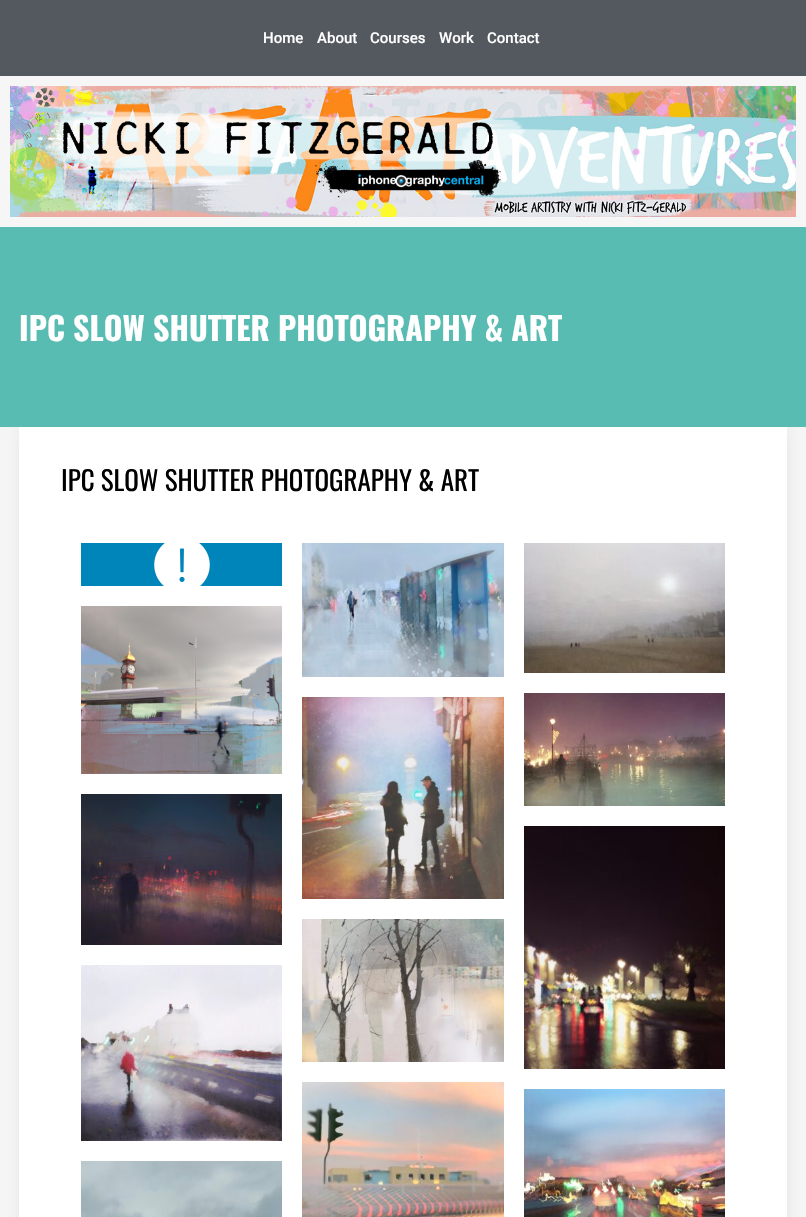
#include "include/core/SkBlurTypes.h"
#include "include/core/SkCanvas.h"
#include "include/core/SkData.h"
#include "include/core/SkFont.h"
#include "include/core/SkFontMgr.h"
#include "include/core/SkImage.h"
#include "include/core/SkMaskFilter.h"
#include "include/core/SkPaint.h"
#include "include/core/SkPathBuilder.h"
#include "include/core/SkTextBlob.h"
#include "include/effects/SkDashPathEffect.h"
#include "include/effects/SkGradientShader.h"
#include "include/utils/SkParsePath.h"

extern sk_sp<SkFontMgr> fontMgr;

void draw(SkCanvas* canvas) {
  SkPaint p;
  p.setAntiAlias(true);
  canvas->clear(SkColorSetRGB(246, 246, 246));
  p.setColor(SkColorSetRGB(84, 89, 95));
  canvas->drawRect(SkRect::MakeLTRB(0, 0, 806, 76), p);
  canvas->drawImageRect(SkImages::DeferredFromEncodedData(SkData::MakeFromFileName("images/1.png")), SkRect::MakeLTRB(10, 86, 796, 217), SkSamplingOptions());
  p.setColor(SkColorSetRGB(229, 229, 229));
  p.setMaskFilter(SkMaskFilter::MakeBlur(kNormal_SkBlurStyle, 7.5f));
  canvas->drawRect(SkRect::MakeLTRB(20, 429, 788, 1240), p);
  p.setMaskFilter(nullptr);
  p.setColor(SkColorSetRGB(88, 188, 179));
  canvas->drawRect(SkRect::MakeLTRB(0, 227, 806, 427), p);
  p.setColor(SK_ColorWHITE);
  canvas->drawRect(SkRect::MakeLTRB(19, 427, 787, 1217), p);
  p.setColor(SkColorSetRGB(0, 133, 186));
  canvas->drawRect(SkRect::MakeLTRB(81, 543, 282, 586), p);
  canvas->drawImageRect(SkImages::DeferredFromEncodedData(SkData::MakeFromFileName("images/2.png")), SkRect::MakeLTRB(154, 543, 210, 586), SkSamplingOptions());
  canvas->drawImageRect(SkImages::DeferredFromEncodedData(SkData::MakeFromFileName("images/3.png")), SkRect::MakeLTRB(81, 606, 282, 774), SkSamplingOptions());
  canvas->drawImageRect(SkImages::DeferredFromEncodedData(SkData::MakeFromFileName("images/4.png")), SkRect::MakeLTRB(81, 794, 282, 945), SkSamplingOptions());
  canvas->drawImageRect(SkImages::DeferredFromEncodedData(SkData::MakeFromFileName("images/5.png")), SkRect::MakeLTRB(81, 965, 282, 1141), SkSamplingOptions());
  canvas->drawImageRect(SkImages::DeferredFromEncodedData(SkData::MakeFromFileName("images/6.png")), SkRect::MakeLTRB(81, 1161, 282, 1217), SkSamplingOptions());
  canvas->drawImageRect(SkImages::DeferredFromEncodedData(SkData::MakeFromFileName("images/7.png")), SkRect::MakeLTRB(302, 543, 504, 677), SkSamplingOptions());
  canvas->drawImageRect(SkImages::DeferredFromEncodedData(SkData::MakeFromFileName("images/8.png")), SkRect::MakeLTRB(302, 697, 504, 899), SkSamplingOptions());
  canvas->drawImageRect(SkImages::DeferredFromEncodedData(SkData::MakeFromFileName("images/9.png")), SkRect::MakeLTRB(302, 919, 504, 1062), SkSamplingOptions());
  canvas->drawImageRect(SkImages::DeferredFromEncodedData(SkData::MakeFromFileName("images/10.png")), SkRect::MakeLTRB(302, 1082, 504, 1217), SkSamplingOptions());
  canvas->drawImageRect(SkImages::DeferredFromEncodedData(SkData::MakeFromFileName("images/11.png")), SkRect::MakeLTRB(524, 543, 725, 673), SkSamplingOptions());
  canvas->drawImageRect(SkImages::DeferredFromEncodedData(SkData::MakeFromFileName("images/12.png")), SkRect::MakeLTRB(524, 693, 725, 806), SkSamplingOptions());
  canvas->drawImageRect(SkImages::DeferredFromEncodedData(SkData::MakeFromFileName("images/13.png")), SkRect::MakeLTRB(524, 826, 725, 1069), SkSamplingOptions());
  canvas->drawImageRect(SkImages::DeferredFromEncodedData(SkData::MakeFromFileName("images/14.png")), SkRect::MakeLTRB(524, 1089, 725, 1217), SkSamplingOptions());
  SkFont font1(fontMgr->matchFamilyStyle("Roboto", SkFontStyle(500, SkFontStyle::kNormal_Width, SkFontStyle::kUpright_Slant)), 15);
  font1.setSubpixel(true);
  p.setColor(SK_ColorWHITE);
  canvas->drawString("Home", 263, 43, font1, p);
  canvas->drawString("About", 317, 43, font1, p);
  canvas->drawString("Courses", 370, 43, font1, p);
  canvas->drawString("Work", 439, 43, font1, p);
  canvas->drawString("Contact", 487, 43, font1, p);
  SkFont font2(fontMgr->matchFamilyStyle("Oswald", SkFontStyle::Bold()), 32);
  font2.setSubpixel(true);
  canvas->drawString("IPC SLOW SHUTTER PHOTOGRAPHY & ART", 19, 341, font2, p);
  SkFont font3(fontMgr->matchFamilyStyle("Oswald", SkFontStyle::Normal()), 27);
  font3.setSubpixel(true);
  p.setColor(SK_ColorBLACK);
  canvas->drawString("IPC SLOW SHUTTER PHOTOGRAPHY & ART", 61, 491, font3, p);
}
